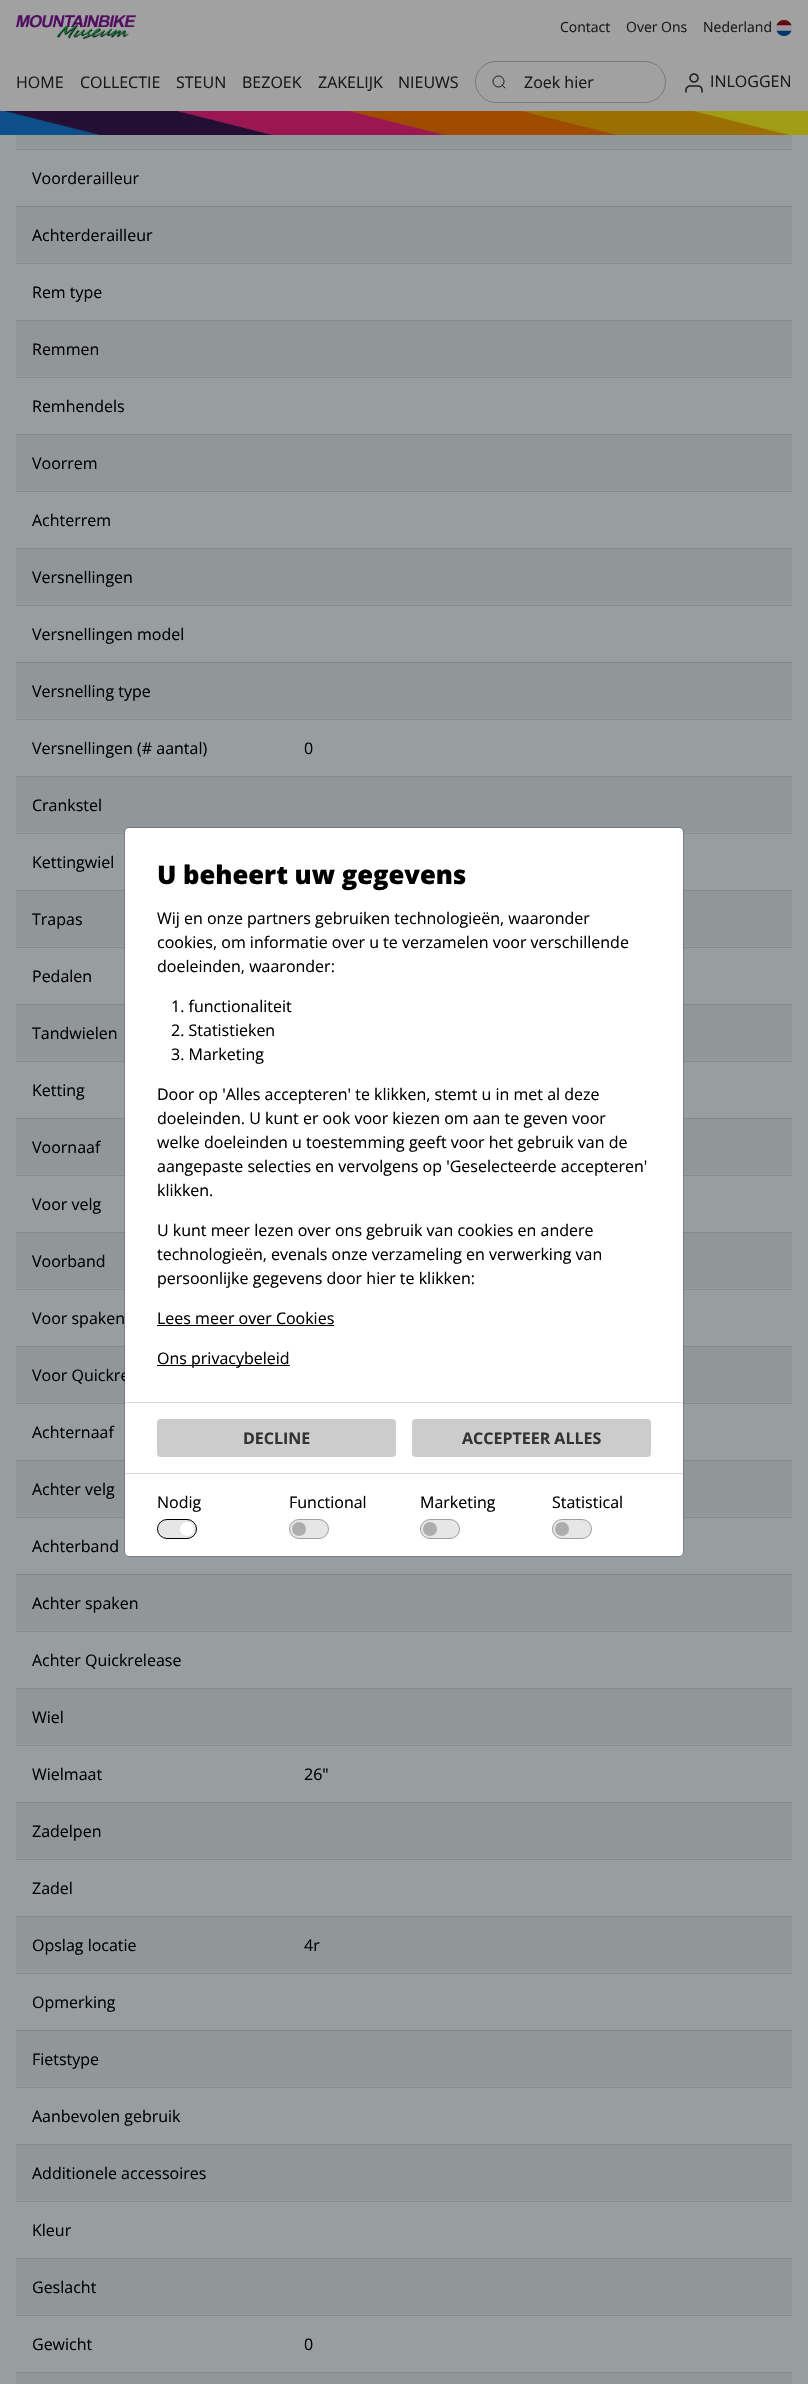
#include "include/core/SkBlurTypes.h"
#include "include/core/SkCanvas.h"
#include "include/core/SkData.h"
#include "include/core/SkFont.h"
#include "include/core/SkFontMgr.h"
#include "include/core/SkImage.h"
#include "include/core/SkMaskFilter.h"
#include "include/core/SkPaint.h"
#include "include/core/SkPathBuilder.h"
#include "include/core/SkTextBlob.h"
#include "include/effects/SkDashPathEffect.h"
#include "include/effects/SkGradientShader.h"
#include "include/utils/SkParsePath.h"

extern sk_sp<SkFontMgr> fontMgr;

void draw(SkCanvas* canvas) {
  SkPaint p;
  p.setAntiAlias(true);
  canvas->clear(SkColorSetRGB(152, 158, 160));
  p.setColor(SkColorSetRGB(161, 161, 161));
  canvas->drawRect(SkRect::MakeLTRB(0, 0, 808, 111), p);
  canvas->drawImageRect(SkImages::DeferredFromEncodedData(SkData::MakeFromFileName("images/1.png")), SkRect::MakeLTRB(16, 15, 136, 39), SkSamplingOptions());
  canvas->drawImageRect(SkImages::DeferredFromEncodedData(SkData::MakeFromFileName("images/2.png")), SkRect::MakeLTRB(776, 20, 792, 36), SkSamplingOptions());
  p.setStyle(SkPaint::kStroke_Style);
  p.setStrokeWidth(1);
  p.setColor(SkColorSetRGB(120, 120, 120));
  canvas->drawRoundRect(SkRect::MakeLTRB(475.5f, 61.5f, 665.5f, 102.5f), 20.5f, 20.5f, p);
  p.setColor(SkColorSetRGB(24, 24, 24));
  canvas->drawCircle(498.5f, 81.5f, 5.5f, p);
  p.setStrokeCap(SkPaint::kRound_Cap);
  p.setStrokeJoin(SkPaint::kRound_Join);
  canvas->drawPath(SkPathBuilder().moveTo(505, 88).lineTo(502, 85).detach(), p);
  canvas->drawImageRect(SkImages::DeferredFromEncodedData(SkData::MakeFromFileName("images/3.png")), SkRect::MakeLTRB(685, 73, 703, 93), SkSamplingOptions());
  canvas->drawImageRect(SkImages::DeferredFromEncodedData(SkData::MakeFromFileName("images/4.png")), SkRect::MakeLTRB(0, 111, 808, 135), SkSamplingOptions());
  p.setStyle(SkPaint::kFill_Style);
  p.setColor(SkColorSetRGB(145, 150, 152));
  canvas->drawRect(SkRect::MakeLTRB(16, 135, 792, 148), p);
  p.setColor(SkColorSetRGB(137, 137, 137));
  canvas->drawRect(SkRect::MakeLTRB(16, 149, 792, 150), p);
  canvas->drawRect(SkRect::MakeLTRB(16, 206, 792, 207), p);
  p.setColor(SkColorSetRGB(145, 150, 152));
  canvas->drawRect(SkRect::MakeLTRB(16, 207, 792, 262), p);
  p.setColor(SkColorSetRGB(137, 137, 137));
  canvas->drawRect(SkRect::MakeLTRB(16, 263, 792, 264), p);
  canvas->drawRect(SkRect::MakeLTRB(16, 320, 792, 321), p);
  p.setColor(SkColorSetRGB(145, 150, 152));
  canvas->drawRect(SkRect::MakeLTRB(16, 321, 792, 376), p);
  p.setColor(SkColorSetRGB(137, 137, 137));
  canvas->drawRect(SkRect::MakeLTRB(16, 377, 792, 378), p);
  canvas->drawRect(SkRect::MakeLTRB(16, 434, 792, 435), p);
  p.setColor(SkColorSetRGB(145, 150, 152));
  canvas->drawRect(SkRect::MakeLTRB(16, 435, 792, 490), p);
  p.setColor(SkColorSetRGB(137, 137, 137));
  canvas->drawRect(SkRect::MakeLTRB(16, 491, 792, 492), p);
  canvas->drawRect(SkRect::MakeLTRB(16, 548, 792, 549), p);
  p.setColor(SkColorSetRGB(145, 150, 152));
  canvas->drawRect(SkRect::MakeLTRB(16, 549, 792, 604), p);
  p.setColor(SkColorSetRGB(137, 137, 137));
  canvas->drawRect(SkRect::MakeLTRB(16, 605, 792, 606), p);
  canvas->drawRect(SkRect::MakeLTRB(16, 662, 792, 663), p);
  p.setColor(SkColorSetRGB(145, 150, 152));
  canvas->drawRect(SkRect::MakeLTRB(16, 663, 792, 718), p);
  p.setColor(SkColorSetRGB(137, 137, 137));
  canvas->drawRect(SkRect::MakeLTRB(16, 719, 792, 720), p);
  canvas->drawRect(SkRect::MakeLTRB(16, 776, 792, 777), p);
  p.setColor(SkColorSetRGB(145, 150, 152));
  canvas->drawRect(SkRect::MakeLTRB(16, 777, 792, 832), p);
  p.setColor(SkColorSetRGB(137, 137, 137));
  canvas->drawRect(SkRect::MakeLTRB(16, 833, 125, 834), p);
  canvas->drawRect(SkRect::MakeLTRB(683, 833, 792, 834), p);
  canvas->drawRect(SkRect::MakeLTRB(16, 890, 125, 891), p);
  canvas->drawRect(SkRect::MakeLTRB(683, 890, 792, 891), p);
  p.setColor(SkColorSetRGB(145, 150, 152));
  canvas->drawRect(SkRect::MakeLTRB(16, 891, 125, 946), p);
  p.setColor(SkColorSetRGB(137, 137, 137));
  canvas->drawRect(SkRect::MakeLTRB(16, 947, 125, 948), p);
  p.setColor(SkColorSetRGB(145, 150, 152));
  canvas->drawRect(SkRect::MakeLTRB(683, 891, 792, 946), p);
  p.setColor(SkColorSetRGB(137, 137, 137));
  canvas->drawRect(SkRect::MakeLTRB(683, 947, 792, 948), p);
  canvas->drawRect(SkRect::MakeLTRB(16, 1004, 125, 1005), p);
  canvas->drawRect(SkRect::MakeLTRB(683, 1004, 792, 1005), p);
  p.setColor(SkColorSetRGB(145, 150, 152));
  canvas->drawRect(SkRect::MakeLTRB(16, 1005, 125, 1060), p);
  p.setColor(SkColorSetRGB(137, 137, 137));
  canvas->drawRect(SkRect::MakeLTRB(16, 1061, 125, 1062), p);
  p.setColor(SkColorSetRGB(145, 150, 152));
  canvas->drawRect(SkRect::MakeLTRB(683, 1005, 792, 1060), p);
  p.setColor(SkColorSetRGB(137, 137, 137));
  canvas->drawRect(SkRect::MakeLTRB(683, 1061, 792, 1062), p);
  canvas->drawRect(SkRect::MakeLTRB(16, 1118, 125, 1119), p);
  canvas->drawRect(SkRect::MakeLTRB(683, 1118, 792, 1119), p);
  p.setColor(SkColorSetRGB(145, 150, 152));
  canvas->drawRect(SkRect::MakeLTRB(16, 1119, 125, 1174), p);
  p.setColor(SkColorSetRGB(137, 137, 137));
  canvas->drawRect(SkRect::MakeLTRB(16, 1175, 125, 1176), p);
  p.setColor(SkColorSetRGB(145, 150, 152));
  canvas->drawRect(SkRect::MakeLTRB(683, 1119, 792, 1174), p);
  p.setColor(SkColorSetRGB(137, 137, 137));
  canvas->drawRect(SkRect::MakeLTRB(683, 1175, 792, 1176), p);
  canvas->drawRect(SkRect::MakeLTRB(16, 1232, 125, 1233), p);
  canvas->drawRect(SkRect::MakeLTRB(683, 1232, 792, 1233), p);
  p.setColor(SkColorSetRGB(145, 150, 152));
  canvas->drawRect(SkRect::MakeLTRB(16, 1233, 125, 1288), p);
  p.setColor(SkColorSetRGB(137, 137, 137));
  canvas->drawRect(SkRect::MakeLTRB(16, 1289, 125, 1290), p);
  p.setColor(SkColorSetRGB(145, 150, 152));
  canvas->drawRect(SkRect::MakeLTRB(683, 1233, 792, 1288), p);
  p.setColor(SkColorSetRGB(137, 137, 137));
  canvas->drawRect(SkRect::MakeLTRB(683, 1289, 792, 1290), p);
  canvas->drawRect(SkRect::MakeLTRB(16, 1346, 125, 1347), p);
  canvas->drawRect(SkRect::MakeLTRB(683, 1346, 792, 1347), p);
  p.setColor(SkColorSetRGB(145, 150, 152));
  canvas->drawRect(SkRect::MakeLTRB(16, 1347, 125, 1402), p);
  p.setColor(SkColorSetRGB(137, 137, 137));
  canvas->drawRect(SkRect::MakeLTRB(16, 1403, 125, 1404), p);
  p.setColor(SkColorSetRGB(145, 150, 152));
  canvas->drawRect(SkRect::MakeLTRB(683, 1347, 792, 1402), p);
  p.setColor(SkColorSetRGB(137, 137, 137));
  canvas->drawRect(SkRect::MakeLTRB(683, 1403, 792, 1404), p);
  canvas->drawRect(SkRect::MakeLTRB(16, 1460, 125, 1461), p);
  canvas->drawRect(SkRect::MakeLTRB(683, 1460, 792, 1461), p);
  p.setColor(SkColorSetRGB(145, 150, 152));
  canvas->drawRect(SkRect::MakeLTRB(16, 1461, 125, 1516), p);
  p.setColor(SkColorSetRGB(137, 137, 137));
  canvas->drawRect(SkRect::MakeLTRB(16, 1517, 125, 1518), p);
  p.setColor(SkColorSetRGB(145, 150, 152));
  canvas->drawRect(SkRect::MakeLTRB(683, 1461, 792, 1516), p);
  p.setColor(SkColorSetRGB(137, 137, 137));
  canvas->drawRect(SkRect::MakeLTRB(683, 1517, 792, 1518), p);
  canvas->drawRect(SkRect::MakeLTRB(16, 1574, 792, 1575), p);
  p.setColor(SkColorSetRGB(145, 150, 152));
  canvas->drawRect(SkRect::MakeLTRB(16, 1575, 792, 1630), p);
  p.setColor(SkColorSetRGB(137, 137, 137));
  canvas->drawRect(SkRect::MakeLTRB(16, 1631, 792, 1632), p);
  canvas->drawRect(SkRect::MakeLTRB(16, 1688, 792, 1689), p);
  p.setColor(SkColorSetRGB(145, 150, 152));
  canvas->drawRect(SkRect::MakeLTRB(16, 1689, 792, 1744), p);
  p.setColor(SkColorSetRGB(137, 137, 137));
  canvas->drawRect(SkRect::MakeLTRB(16, 1745, 792, 1746), p);
  canvas->drawRect(SkRect::MakeLTRB(16, 1802, 792, 1803), p);
  p.setColor(SkColorSetRGB(145, 150, 152));
  canvas->drawRect(SkRect::MakeLTRB(16, 1803, 792, 1858), p);
  p.setColor(SkColorSetRGB(137, 137, 137));
  canvas->drawRect(SkRect::MakeLTRB(16, 1859, 792, 1860), p);
  canvas->drawRect(SkRect::MakeLTRB(16, 1916, 792, 1917), p);
  p.setColor(SkColorSetRGB(145, 150, 152));
  canvas->drawRect(SkRect::MakeLTRB(16, 1917, 792, 1972), p);
  p.setColor(SkColorSetRGB(137, 137, 137));
  canvas->drawRect(SkRect::MakeLTRB(16, 1973, 792, 1974), p);
  canvas->drawRect(SkRect::MakeLTRB(16, 2030, 792, 2031), p);
  p.setColor(SkColorSetRGB(145, 150, 152));
  canvas->drawRect(SkRect::MakeLTRB(16, 2031, 792, 2086), p);
  p.setColor(SkColorSetRGB(137, 137, 137));
  canvas->drawRect(SkRect::MakeLTRB(16, 2087, 792, 2088), p);
  canvas->drawRect(SkRect::MakeLTRB(16, 2144, 792, 2145), p);
  p.setColor(SkColorSetRGB(145, 150, 152));
  canvas->drawRect(SkRect::MakeLTRB(16, 2145, 792, 2200), p);
  p.setColor(SkColorSetRGB(137, 137, 137));
  canvas->drawRect(SkRect::MakeLTRB(16, 2201, 792, 2202), p);
  canvas->drawRect(SkRect::MakeLTRB(16, 2258, 792, 2259), p);
  p.setColor(SkColorSetRGB(145, 150, 152));
  canvas->drawRect(SkRect::MakeLTRB(16, 2259, 792, 2314), p);
  p.setColor(SkColorSetRGB(137, 137, 137));
  canvas->drawRect(SkRect::MakeLTRB(16, 2315, 792, 2316), p);
  canvas->drawRect(SkRect::MakeLTRB(16, 2372, 792, 2373), p);
  p.setColor(SkColorSetRGB(145, 150, 152));
  canvas->drawRect(SkRect::MakeLTRB(16, 2373, 792, 2384), p);
  SkFont font1(fontMgr->matchFamilyStyle("Open Sans", SkFontStyle::Normal()), 14);
  font1.setSubpixel(true);
  p.setColor(SkColorSetRGB(24, 24, 24));
  canvas->drawString("Contact", 560, 32, font1, p);
  canvas->drawString("Over Ons", 626, 32, font1, p);
  canvas->drawString("Nederland", 703, 32, font1, p);
  SkFont font2(fontMgr->matchFamilyStyle("Open Sans", SkFontStyle::Normal()), 16);
  font2.setSubpixel(true);
  canvas->drawString("HOME", 16, 88, font2, p);
  canvas->drawString("COLLECTIE", 80, 88, font2, p);
  canvas->drawString("STEUN", 176, 88, font2, p);
  canvas->drawString("BEZOEK", 242, 88, font2, p);
  canvas->drawString("ZAKELIJK", 318, 88, font2, p);
  canvas->drawString("NIEUWS", 398, 88, font2, p);
  canvas->drawString("Zoek hier", 524, 88, font2, p);
  canvas->drawString("INLOGGEN", 710, 87, font2, p);
  p.setColor(SK_ColorBLACK);
  canvas->drawString("Voorderailleur", 32, 184, font2, p);
  canvas->drawString("Achterderailleur", 32, 241, font2, p);
  canvas->drawString("Rem type", 32, 298, font2, p);
  canvas->drawString("Remmen", 32, 355, font2, p);
  canvas->drawString("Remhendels", 32, 412, font2, p);
  canvas->drawString("Voorrem", 32, 469, font2, p);
  canvas->drawString("Achterrem", 32, 526, font2, p);
  canvas->drawString("Versnellingen", 32, 583, font2, p);
  canvas->drawString("Versnellingen model", 32, 640, font2, p);
  canvas->drawString("Versnelling type", 32, 697, font2, p);
  canvas->drawString("Versnellingen (# aantal)", 32, 754, font2, p);
  canvas->drawString("0", 304, 754, font2, p);
  canvas->drawString("Crankstel", 32, 811, font2, p);
  canvas->drawString("Kettingwiel", 32, 868, font2, p);
  canvas->drawString("Trapas", 32, 925, font2, p);
  canvas->drawString("Pedalen", 32, 982, font2, p);
  canvas->drawString("Tandwielen", 32, 1039, font2, p);
  canvas->drawString("Ketting", 32, 1096, font2, p);
  canvas->drawString("Voornaaf", 32, 1153, font2, p);
  canvas->drawString("Voor velg", 32, 1210, font2, p);
  canvas->drawString("Voorband", 32, 1267, font2, p);
  canvas->drawString("Voor spaken", 32, 1324, font2, p);
  canvas->drawString("Voor Quickre", 32, 1381, font2, p);
  canvas->drawString("Achternaaf", 32, 1438, font2, p);
  canvas->drawString("Achter velg", 32, 1495, font2, p);
  canvas->drawString("Achterband", 32, 1552, font2, p);
  canvas->drawString("Achter spaken", 32, 1609, font2, p);
  canvas->drawString("Achter Quickrelease", 32, 1666, font2, p);
  canvas->drawString("Wiel", 32, 1723, font2, p);
  canvas->drawString("Wielmaat", 32, 1780, font2, p);
  canvas->drawString("26\"", 304, 1780, font2, p);
  canvas->drawString("Zadelpen", 32, 1837, font2, p);
  canvas->drawString("Zadel", 32, 1894, font2, p);
  canvas->drawString("Opslag locatie", 32, 1951, font2, p);
  canvas->drawString("4r", 304, 1951, font2, p);
  canvas->drawString("Opmerking", 32, 2008, font2, p);
  canvas->drawString("Fietstype", 32, 2065, font2, p);
  canvas->drawString("Aanbevolen gebruik", 32, 2122, font2, p);
  canvas->drawString("Additionele accessoires", 32, 2179, font2, p);
  canvas->drawString("Kleur", 32, 2236, font2, p);
  canvas->drawString("Geslacht", 32, 2293, font2, p);
  canvas->drawString("Gewicht", 32, 2350, font2, p);
  canvas->drawString("0", 304, 2350, font2, p);
  p.setColor(SK_ColorWHITE);
  canvas->drawRoundRect(SkRect::MakeLTRB(125, 828, 683, 1556), 4, 4, p);
  p.setStyle(SkPaint::kStroke_Style);
  p.setStrokeCap(SkPaint::kButt_Cap);
  p.setStrokeJoin(SkPaint::kMiter_Join);
  p.setColor(SkColorSetARGB(51, 0, 0, 0));
  canvas->drawRoundRect(SkRect::MakeLTRB(124.5f, 827.5f, 683.5f, 1556.5f), 4.5f, 4.5f, p);
  SkFont font3(fontMgr->matchFamilyStyle("Open Sans", SkFontStyle(800, SkFontStyle::kNormal_Width, SkFontStyle::kUpright_Slant)), 25.6f);
  font3.setSubpixel(true);
  p.setStyle(SkPaint::kFill_Style);
  p.setColor(SK_ColorBLACK);
  canvas->drawString("U beheert uw gegevens", 157, 884, font3, p);
  canvas->drawString("Wij en onze partners gebruiken technologieën, waaronder", 157, 924, font2, p);
  canvas->drawString("cookies, om informatie over u te verzamelen voor verschillende", 157, 948, font2, p);
  canvas->drawString("doeleinden, waaronder:", 157, 972, font2, p);
  canvas->drawString("1. functionaliteit", 171, 1012, font2, p);
  canvas->drawString("2. Statistieken", 171, 1036, font2, p);
  canvas->drawString("3. Marketing", 171, 1060, font2, p);
  canvas->drawString("Door op 'Alles accepteren' te klikken, stemt u in met al deze", 157, 1100, font2, p);
  canvas->drawString("doeleinden. U kunt er ook voor kiezen om aan te geven voor", 157, 1124, font2, p);
  canvas->drawString("welke doeleinden u toestemming geeft voor het gebruik van de", 157, 1148, font2, p);
  canvas->drawString("aangepaste selecties en vervolgens op 'Geselecteerde accepteren'", 157, 1172, font2, p);
  canvas->drawString("klikken.", 157, 1196, font2, p);
  canvas->drawString("U kunt meer lezen over ons gebruik van cookies en andere", 157, 1236, font2, p);
  canvas->drawString("technologieën, evenals onze verzameling en verwerking van", 157, 1260, font2, p);
  canvas->drawString("persoonlijke gegevens door hier te klikken:", 157, 1284, font2, p);
  canvas->drawString("Lees meer over Cookies", 157, 1324, font2, p);
  canvas->drawRect(SkRect::MakeLTRB(157, 1325, 334, 1326), p);
  canvas->drawRect(SkRect::MakeLTRB(157, 1365, 290, 1366), p);
  canvas->drawString("Ons privacybeleid", 157, 1364, font2, p);
  p.setColor(SkColorSetRGB(217, 217, 217));
  canvas->drawRect(SkRect::MakeLTRB(125, 1402, 683, 1403), p);
  p.setColor(SkColorSetRGB(204, 204, 204));
  canvas->drawRoundRect(SkRect::MakeLTRB(157, 1419, 396, 1457), 4, 4, p);
  SkFont font4(fontMgr->matchFamilyStyle("Open Sans", SkFontStyle::Bold()), 16);
  font4.setSubpixel(true);
  p.setColor(SkColorSetRGB(51, 51, 51));
  canvas->drawString("DECLINE", 243, 1444, font4, p);
  p.setColor(SkColorSetRGB(204, 204, 204));
  canvas->drawRoundRect(SkRect::MakeLTRB(412, 1419, 651, 1457), 4, 4, p);
  p.setColor(SkColorSetRGB(51, 51, 51));
  canvas->drawString("ACCEPTEER ALLES", 462, 1444, font4, p);
  p.setColor(SkColorSetRGB(217, 217, 217));
  canvas->drawRect(SkRect::MakeLTRB(125, 1473, 683, 1474), p);
  p.setColor(SK_ColorBLACK);
  canvas->drawString("Nodig", 157, 1508, font2, p);
  p.setColor(SkColorSetRGB(230, 230, 230));
  canvas->drawRoundRect(SkRect::MakeLTRB(157, 1519, 197, 1539), 10, 10, p);
  p.setColor(SK_ColorWHITE);
  canvas->drawCircle(187, 1529, 7, p);
  p.setStyle(SkPaint::kStroke_Style);
  p.setColor(SK_ColorBLACK);
  canvas->drawRoundRect(SkRect::MakeLTRB(157.5f, 1519.5f, 196.5f, 1538.5f), 9.5f, 9.5f, p);
  p.setStyle(SkPaint::kFill_Style);
  canvas->drawString("Functional", 289, 1508, font2, p);
  p.setColor(SkColorSetRGB(230, 230, 230));
  canvas->drawRoundRect(SkRect::MakeLTRB(289, 1519, 329, 1539), 10, 10, p);
  p.setColor(SkColorSetRGB(173, 173, 173));
  canvas->drawCircle(299, 1529, 7, p);
  p.setStyle(SkPaint::kStroke_Style);
  p.setColor(SkColorSetARGB(77, 0, 0, 0));
  canvas->drawRoundRect(SkRect::MakeLTRB(289.5f, 1519.5f, 328.5f, 1538.5f), 9.5f, 9.5f, p);
  p.setStyle(SkPaint::kFill_Style);
  p.setColor(SK_ColorBLACK);
  canvas->drawString("Marketing", 420, 1508, font2, p);
  p.setColor(SkColorSetRGB(230, 230, 230));
  canvas->drawRoundRect(SkRect::MakeLTRB(420, 1519, 460, 1539), 10, 10, p);
  p.setColor(SkColorSetRGB(173, 173, 173));
  canvas->drawCircle(430, 1529, 7, p);
  p.setStyle(SkPaint::kStroke_Style);
  p.setColor(SkColorSetARGB(77, 0, 0, 0));
  canvas->drawRoundRect(SkRect::MakeLTRB(420.5f, 1519.5f, 459.5f, 1538.5f), 9.5f, 9.5f, p);
  p.setStyle(SkPaint::kFill_Style);
  p.setColor(SK_ColorBLACK);
  canvas->drawString("Statistical", 552, 1508, font2, p);
  p.setColor(SkColorSetRGB(230, 230, 230));
  canvas->drawRoundRect(SkRect::MakeLTRB(552, 1519, 592, 1539), 10, 10, p);
  p.setColor(SkColorSetRGB(173, 173, 173));
  canvas->drawCircle(562, 1529, 7, p);
  p.setStyle(SkPaint::kStroke_Style);
  p.setColor(SkColorSetARGB(77, 0, 0, 0));
  canvas->drawRoundRect(SkRect::MakeLTRB(552.5f, 1519.5f, 591.5f, 1538.5f), 9.5f, 9.5f, p);
}
